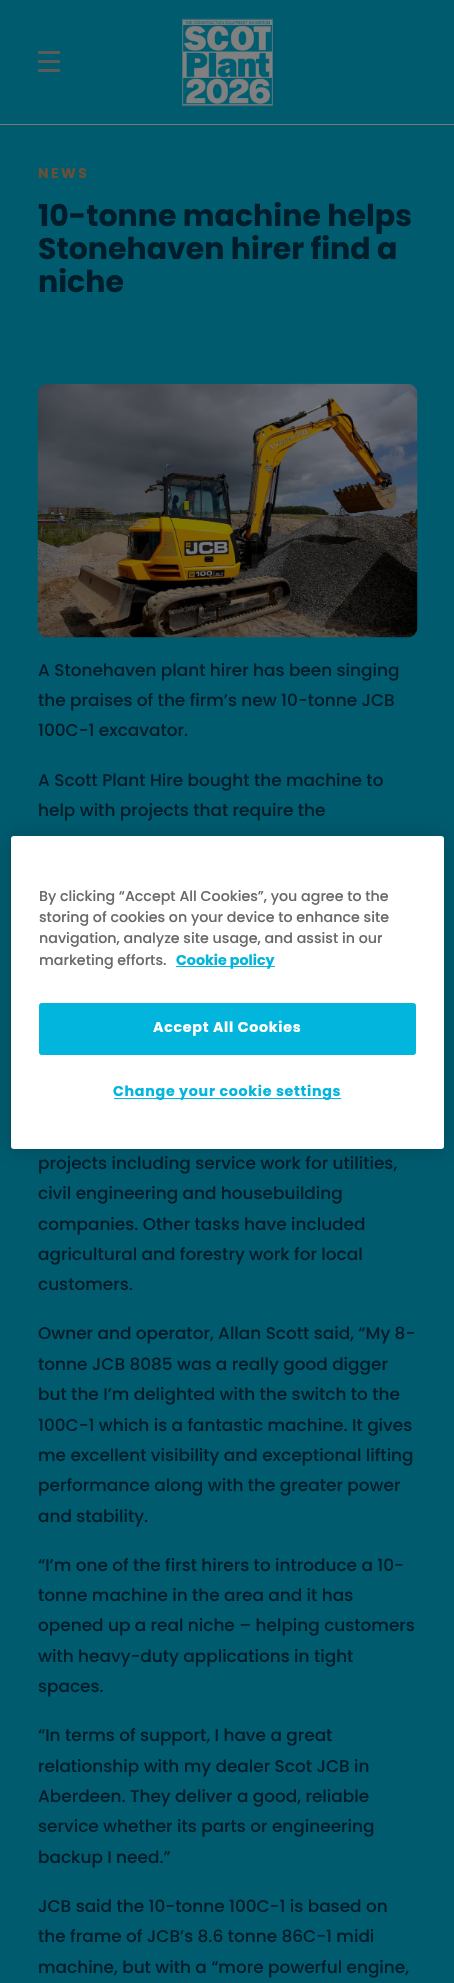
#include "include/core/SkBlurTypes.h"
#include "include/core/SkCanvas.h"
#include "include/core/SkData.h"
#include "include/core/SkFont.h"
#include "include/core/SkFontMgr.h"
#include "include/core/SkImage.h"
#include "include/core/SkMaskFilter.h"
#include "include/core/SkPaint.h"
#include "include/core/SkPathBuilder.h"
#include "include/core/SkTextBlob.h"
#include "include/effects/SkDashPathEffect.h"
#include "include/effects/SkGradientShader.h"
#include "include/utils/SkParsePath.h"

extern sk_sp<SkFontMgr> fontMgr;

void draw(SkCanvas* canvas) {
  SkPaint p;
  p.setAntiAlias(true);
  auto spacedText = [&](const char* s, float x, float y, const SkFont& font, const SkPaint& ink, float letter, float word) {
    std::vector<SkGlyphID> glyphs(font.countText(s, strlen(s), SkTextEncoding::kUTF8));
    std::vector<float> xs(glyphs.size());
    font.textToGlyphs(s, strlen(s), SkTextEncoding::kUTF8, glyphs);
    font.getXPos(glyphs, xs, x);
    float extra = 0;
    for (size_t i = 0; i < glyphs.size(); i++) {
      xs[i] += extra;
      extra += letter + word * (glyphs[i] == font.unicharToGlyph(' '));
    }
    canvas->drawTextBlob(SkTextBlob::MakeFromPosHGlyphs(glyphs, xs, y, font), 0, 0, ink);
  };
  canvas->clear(SkColorSetRGB(0, 91, 111));
  p.setColor(SkColorSetRGB(119, 119, 119));
  canvas->drawRect(SkRect::MakeLTRB(0, 124, 454, 125), p);
  p.setColor(SkColorSetRGB(91, 91, 91));
  canvas->drawRect(SkRect::MakeLTRB(38, 51, 60, 54), p);
  canvas->drawRect(SkRect::MakeLTRB(38, 60, 60, 63), p);
  canvas->drawRect(SkRect::MakeLTRB(38, 69, 60, 72), p);
  canvas->drawImageRect(SkImages::DeferredFromEncodedData(SkData::MakeFromFileName("images/1.png")), SkRect::MakeLTRB(182, 18, 273, 107), SkSamplingOptions());
  canvas->drawImageRect(SkImages::DeferredFromEncodedData(SkData::MakeFromFileName("images/2.png")), SkRect::MakeLTRB(37, 383, 418, 638), SkSamplingOptions());
  p.setColor(SkColorSetARGB(51, 0, 0, 0));
  p.setMaskFilter(SkMaskFilter::MakeBlur(kNormal_SkBlurStyle, 11));
  canvas->drawRoundRect(SkRect::MakeLTRB(11, 836, 444, 1149), 3, 3, p);
  p.setMaskFilter(nullptr);
  p.setColor(SK_ColorWHITE);
  canvas->drawRoundRect(SkRect::MakeLTRB(11, 836, 444, 1149), 3, 3, p);
  p.setColor(SkColorSetRGB(2, 181, 221));
  canvas->drawRect(SkRect::MakeLTRB(176, 966, 275, 967), p);
  canvas->drawRoundRect(SkRect::MakeLTRB(39.5f, 1003.5f, 415.5f, 1054.5f), 2, 2, p);
  p.setStyle(SkPaint::kStroke_Style);
  p.setStrokeWidth(1);
  canvas->drawRoundRect(SkRect::MakeLTRB(39.5f, 1003.5f, 415.5f, 1054.5f), 2, 2, p);
  p.setStyle(SkPaint::kFill_Style);
  canvas->drawRect(SkRect::MakeLTRB(114, 1098, 341, 1099), p);
  SkFont font1(fontMgr->matchFamilyStyle("Poppins", SkFontStyle::Bold()), 14);
  font1.setSubpixel(true);
  p.setColor(SkColorSetRGB(108, 78, 53));
  spacedText("NEWS", 38, 178, font1, p, 2.5f, 0);
  SkFont font2(fontMgr->matchFamilyStyle("Poppins", SkFontStyle::Bold()), 30);
  font2.setSubpixel(true);
  p.setColor(SkColorSetRGB(0, 29, 43));
  canvas->drawString("10-tonne machine helps", 38, 226, font2, p);
  canvas->drawString("Stonehaven hirer find a", 38, 259, font2, p);
  canvas->drawString("niche", 38, 292, font2, p);
  SkFont font3(fontMgr->matchFamilyStyle("Poppins", SkFontStyle(500, SkFontStyle::kNormal_Width, SkFontStyle::kUpright_Slant)), 16.9f);
  font3.setSubpixel(true);
  canvas->drawString("A Stonehaven plant hirer has been singing", 38, 676, font3, p);
  canvas->drawString("the praises of the firm’s new 10-tonne JCB", 38, 706, font3, p);
  canvas->drawString("100C-1 excavator.", 38, 736, font3, p);
  canvas->drawString("A Scott Plant Hire bought the machine to", 38, 786, font3, p);
  canvas->drawString("help with projects that require the", 38, 816, font3, p);
  canvas->drawString("projects including service work for utilities,", 38, 1169, font3, p);
  canvas->drawString("civil engineering and housebuilding", 38, 1199, font3, p);
  canvas->drawString("companies. Other tasks have included", 38, 1230, font3, p);
  canvas->drawString("agricultural and forestry work for local", 38, 1260, font3, p);
  canvas->drawString("customers.", 38, 1290, font3, p);
  canvas->drawString("Owner and operator, Allan Scott said, “My 8-", 38, 1339, font3, p);
  canvas->drawString("tonne JCB 8085 was a really good digger", 38, 1370, font3, p);
  canvas->drawString("but the I’m delighted with the switch to the", 38, 1400, font3, p);
  canvas->drawString("100C-1 which is a fantastic machine. It gives", 38, 1431, font3, p);
  canvas->drawString("me excellent visibility and exceptional lifting", 38, 1461, font3, p);
  canvas->drawString("performance along with the greater power", 38, 1491, font3, p);
  canvas->drawString("and stability.", 38, 1522, font3, p);
  canvas->drawString("“I’m one of the first hirers to introduce a 10-", 38, 1571, font3, p);
  canvas->drawString("tonne machine in the area and it has", 38, 1601, font3, p);
  canvas->drawString("opened up a real niche – helping customers", 38, 1631, font3, p);
  canvas->drawString("with heavy-duty applications in tight", 38, 1662, font3, p);
  canvas->drawString("spaces.", 38, 1692, font3, p);
  canvas->drawString("“In terms of support, I have a great", 38, 1741, font3, p);
  canvas->drawString("relationship with my dealer Scot JCB in", 38, 1772, font3, p);
  canvas->drawString("Aberdeen. They deliver a good, reliable", 38, 1802, font3, p);
  canvas->drawString("service whether its parts or engineering", 38, 1832, font3, p);
  canvas->drawString("backup I need.”", 38, 1863, font3, p);
  canvas->drawString("JCB said the 10-tonne 100C-1 is based on", 38, 1912, font3, p);
  canvas->drawString("the frame of JCB’s 8.6 tonne 86C-1 midi", 38, 1942, font3, p);
  canvas->drawString("machine, but with a “more powerful engine,", 38, 1973, font3, p);
  SkFont font4(fontMgr->matchFamilyStyle("Poppins", SkFontStyle(500, SkFontStyle::kNormal_Width, SkFontStyle::kUpright_Slant)), 14.25f);
  font4.setSubpixel(true);
  p.setColor(SkColorSetRGB(105, 105, 105));
  canvas->drawString("By clicking “Accept All Cookies”, you agree to the", 39, 901, font4, p);
  canvas->drawString("storing of cookies on your device to enhance site", 39, 922, font4, p);
  canvas->drawString("navigation, analyze site usage, and assist in our", 39, 943, font4, p);
  canvas->drawString("marketing efforts.", 39, 965, font4, p);
  SkFont font5(fontMgr->matchFamilyStyle("Poppins", SkFontStyle::Bold()), 14.25f);
  font5.setSubpixel(true);
  p.setColor(SkColorSetRGB(2, 181, 221));
  canvas->drawString("Cookie policy", 176, 965, font5, p);
  p.setColor(SK_ColorWHITE);
  spacedText("Accept All Cookies", 153, 1032, font5, p, 0.7f, 0);
  p.setColor(SkColorSetRGB(2, 181, 221));
  spacedText("Change your cookie settings", 113, 1096, font5, p, 0.7f, 0);
}
